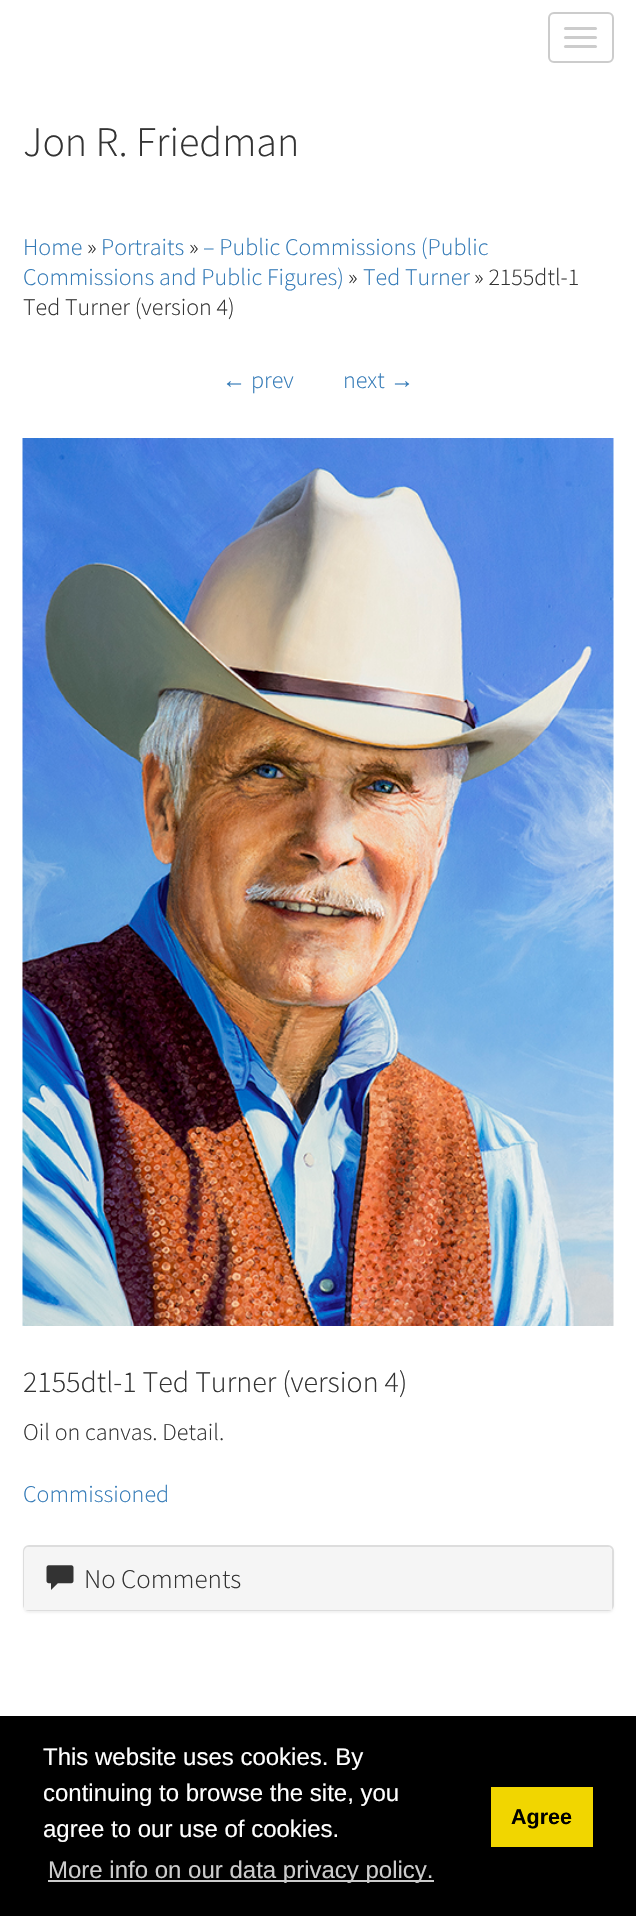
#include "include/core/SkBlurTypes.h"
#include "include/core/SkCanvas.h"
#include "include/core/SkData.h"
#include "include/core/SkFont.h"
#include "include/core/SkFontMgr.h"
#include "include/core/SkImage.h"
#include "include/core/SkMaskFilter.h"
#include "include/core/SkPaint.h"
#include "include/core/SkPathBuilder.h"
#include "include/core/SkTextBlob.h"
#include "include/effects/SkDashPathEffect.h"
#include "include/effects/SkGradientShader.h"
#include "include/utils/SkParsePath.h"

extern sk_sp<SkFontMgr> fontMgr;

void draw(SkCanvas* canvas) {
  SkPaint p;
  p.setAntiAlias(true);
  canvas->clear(SK_ColorWHITE);
  p.setStyle(SkPaint::kStroke_Style);
  p.setStrokeWidth(2);
  p.setColor(SkColorSetRGB(204, 204, 204));
  canvas->drawRoundRect(SkRect::MakeLTRB(549, 13, 613, 62), 5, 5, p);
  p.setStyle(SkPaint::kFill_Style);
  canvas->drawRoundRect(SkRect::MakeLTRB(564, 27, 597, 30), 1.5f, 1.5f, p);
  canvas->drawRoundRect(SkRect::MakeLTRB(564, 36, 597, 39), 1.5f, 1.5f, p);
  canvas->drawRoundRect(SkRect::MakeLTRB(564, 45, 597, 48), 1.5f, 1.5f, p);
  canvas->drawImageRect(SkImages::DeferredFromEncodedData(SkData::MakeFromFileName("images/1.png")), SkRect::MakeLTRB(22, 438, 614, 1326), SkSamplingOptions());
  p.setColor(SkColorSetARGB(13, 0, 0, 0));
  p.setMaskFilter(SkMaskFilter::MakeBlur(kNormal_SkBlurStyle, 1));
  canvas->drawRoundRect(SkRect::MakeLTRB(23, 1547, 614, 1613), 6, 6, p);
  p.setMaskFilter(nullptr);
  p.setColor(SK_ColorWHITE);
  canvas->drawRoundRect(SkRect::MakeLTRB(24, 1546, 613, 1610), 5, 5, p);
  p.setStyle(SkPaint::kStroke_Style);
  p.setColor(SkColorSetRGB(221, 221, 221));
  canvas->drawRoundRect(SkRect::MakeLTRB(24, 1546, 613, 1610), 5, 5, p);
  p.setStyle(SkPaint::kFill_Style);
  p.setColor(SkColorSetRGB(245, 245, 245));
  canvas->drawPath(SkPathBuilder().moveTo(29, 1547).lineTo(607, 1547).cubicTo(610, 1547, 612, 1549, 612, 1552).lineTo(612, 1610).lineTo(24, 1610).lineTo(24, 1552).cubicTo(24, 1549, 26, 1547, 29, 1547).close().detach(), p);
  canvas->drawImageRect(SkImages::DeferredFromEncodedData(SkData::MakeFromFileName("images/2.png")), SkRect::MakeLTRB(46, 1565, 74, 1590), SkSamplingOptions());
  p.setColor(SK_ColorBLACK);
  canvas->drawRect(SkRect::MakeLTRB(0, 1716, 636, 1916), p);
  p.setColor(SkColorSetRGB(204, 204, 204));
  canvas->drawRect(SkRect::MakeLTRB(48, 1880, 434, 1882), p);
  p.setColor(SkColorSetRGB(241, 214, 0));
  canvas->drawRect(SkRect::MakeLTRB(491, 1787, 593, 1847), p);
  SkFont font1(fontMgr->matchFamilyStyle("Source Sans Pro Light", SkFontStyle(300, SkFontStyle::kNormal_Width, SkFontStyle::kUpright_Slant)), 42);
  font1.setSubpixel(true);
  p.setColor(SkColorSetRGB(51, 51, 51));
  canvas->drawString("Jon R. Friedman", 23, 156, font1, p);
  SkFont font2(fontMgr->matchFamilyStyle("Source Sans Pro Light", SkFontStyle(300, SkFontStyle::kNormal_Width, SkFontStyle::kUpright_Slant)), 24);
  font2.setSubpixel(true);
  p.setColor(SkColorSetRGB(51, 122, 183));
  canvas->drawString("Home", 23, 255, font2, p);
  p.setColor(SkColorSetRGB(51, 51, 51));
  canvas->drawString("»", 87, 255, font2, p);
  p.setColor(SkColorSetRGB(51, 122, 183));
  canvas->drawString("Portraits", 101, 255, font2, p);
  p.setColor(SkColorSetRGB(51, 51, 51));
  canvas->drawString("»", 189, 255, font2, p);
  p.setColor(SkColorSetRGB(51, 122, 183));
  canvas->drawString("– Public Commissions (Public", 203, 255, font2, p);
  canvas->drawString("Commissions and Public Figures)", 23, 285, font2, p);
  p.setColor(SkColorSetRGB(51, 51, 51));
  canvas->drawString("»", 348, 285, font2, p);
  p.setColor(SkColorSetRGB(51, 122, 183));
  canvas->drawString("Ted Turner", 363, 285, font2, p);
  p.setColor(SkColorSetRGB(51, 51, 51));
  canvas->drawString("» 2155dtl-1", 474, 285, font2, p);
  canvas->drawString("Ted Turner (version 4)", 23, 315, font2, p);
  SkFont font3(fontMgr->matchFamilyStyle("Liberation Sans", SkFontStyle::Normal()), 24);
  font3.setSubpixel(true);
  p.setColor(SkColorSetRGB(51, 122, 183));
  canvas->drawString("←", 222, 388, font3, p);
  canvas->drawString("prev", 251, 388, font2, p);
  canvas->drawString("next", 343, 388, font2, p);
  canvas->drawString("→", 390, 388, font3, p);
  SkFont font4(fontMgr->matchFamilyStyle("Source Sans Pro Light", SkFontStyle(300, SkFontStyle::kNormal_Width, SkFontStyle::kUpright_Slant)), 30);
  font4.setSubpixel(true);
  p.setColor(SkColorSetRGB(51, 51, 51));
  canvas->drawString("2155dtl-1 Ted Turner (version 4)", 23, 1392, font4, p);
  canvas->drawString("Oil on canvas. Detail.", 23, 1440, font2, p);
  p.setColor(SkColorSetRGB(51, 122, 183));
  canvas->drawString("Commissioned", 23, 1502, font2, p);
  SkFont font5(fontMgr->matchFamilyStyle("Source Sans Pro Light", SkFontStyle(300, SkFontStyle::kNormal_Width, SkFontStyle::kUpright_Slant)), 27);
  font5.setSubpixel(true);
  p.setColor(SkColorSetRGB(51, 51, 51));
  canvas->drawString("No Comments", 84, 1588, font5, p);
  p.setColor(SK_ColorWHITE);
  canvas->drawString("This website uses cookies. By", 43, 1765, font3, p);
  canvas->drawString("continuing to browse the site, you", 43, 1801, font3, p);
  canvas->drawString("agree to our use of cookies.", 43, 1837, font3, p);
  p.setColor(SkColorSetRGB(204, 204, 204));
  canvas->drawString("More info on our data privacy policy.", 48, 1878, font3, p);
  SkFont font6(fontMgr->matchFamilyStyle("Liberation Sans", SkFontStyle::Bold()), 21.5f);
  font6.setSubpixel(true);
  p.setColor(SK_ColorBLACK);
  canvas->drawString("Agree", 511, 1824, font6, p);
}
